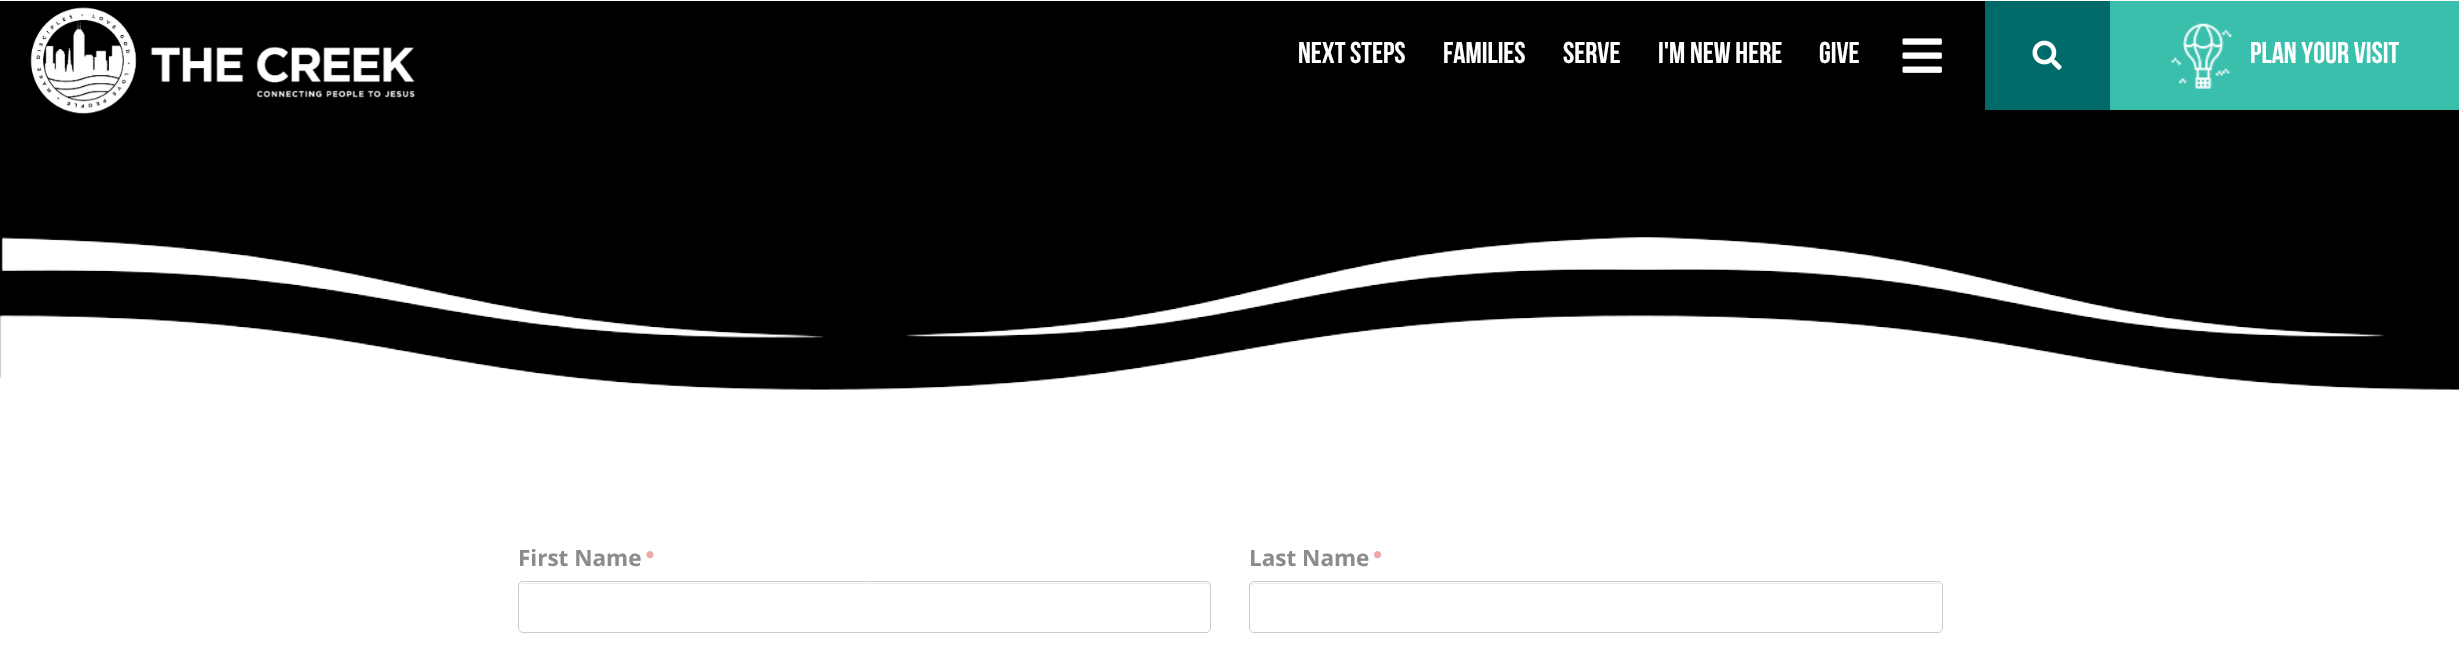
#include "include/core/SkBlurTypes.h"
#include "include/core/SkCanvas.h"
#include "include/core/SkData.h"
#include "include/core/SkFont.h"
#include "include/core/SkFontMgr.h"
#include "include/core/SkImage.h"
#include "include/core/SkMaskFilter.h"
#include "include/core/SkPaint.h"
#include "include/core/SkPathBuilder.h"
#include "include/core/SkTextBlob.h"
#include "include/effects/SkDashPathEffect.h"
#include "include/effects/SkGradientShader.h"
#include "include/utils/SkParsePath.h"

extern sk_sp<SkFontMgr> fontMgr;

void draw(SkCanvas* canvas) {
  SkPaint p;
  p.setAntiAlias(true);
  canvas->clear(SK_ColorWHITE);
  p.setColor(SK_ColorBLACK);
  canvas->drawRect(SkRect::MakeLTRB(0, 1, 2459, 390), p);
  canvas->drawImageRect(SkImages::DeferredFromEncodedData(SkData::MakeFromFileName("images/1.png")), SkRect::MakeLTRB(0, 237, 2459, 451), SkSamplingOptions());
  canvas->drawImageRect(SkImages::DeferredFromEncodedData(SkData::MakeFromFileName("images/2.png")), SkRect::MakeLTRB(0, 237, 2459, 390), SkSamplingOptions());
  canvas->drawImageRect(SkImages::DeferredFromEncodedData(SkData::MakeFromFileName("images/3.png")), SkRect::MakeLTRB(30, 7, 415, 114), SkSamplingOptions());
  canvas->drawImageRect(SkImages::DeferredFromEncodedData(SkData::MakeFromFileName("images/4.png")), SkRect::MakeLTRB(1902, 38, 1942, 73), SkSamplingOptions());
  p.setColor(SkColorSetRGB(0, 106, 106));
  canvas->drawRect(SkRect::MakeLTRB(1985, 1, 2110, 110), p);
  canvas->drawImageRect(SkImages::DeferredFromEncodedData(SkData::MakeFromFileName("images/5.png")), SkRect::MakeLTRB(2032, 40, 2062, 70), SkSamplingOptions());
  p.setColor(SkColorSetRGB(59, 191, 173));
  canvas->drawRect(SkRect::MakeLTRB(2110, 1, 2459, 110), p);
  canvas->drawImageRect(SkImages::DeferredFromEncodedData(SkData::MakeFromFileName("images/6.png")), SkRect::MakeLTRB(2171, 23, 2232, 89), SkSamplingOptions());
  canvas->drawImageRect(SkImages::DeferredFromEncodedData(SkData::MakeFromFileName("images/7.png")), SkRect::MakeLTRB(646, 551, 654, 559), SkSamplingOptions());
  p.setColor(SkColorSetRGB(236, 236, 236));
  canvas->drawPath(SkPathBuilder().moveTo(522, 584).lineTo(1206, 584).cubicTo(1208, 584, 1210, 585, 1210, 588).cubicTo(1210, 585, 1209, 583, 1206, 583).lineTo(523, 583).lineTo(520, 584).lineTo(519, 585).lineTo(519, 588).cubicTo(519, 585, 520, 584, 522, 584).close().detach(), p);
  p.setStyle(SkPaint::kStroke_Style);
  p.setStrokeWidth(1);
  p.setColor(SkColorSetRGB(204, 204, 204));
  canvas->drawRoundRect(SkRect::MakeLTRB(518.5f, 581.5f, 1210.5f, 632.5f), 4.5f, 4.5f, p);
  canvas->drawImageRect(SkImages::DeferredFromEncodedData(SkData::MakeFromFileName("images/8.png")), SkRect::MakeLTRB(1373, 551, 1382, 559), SkSamplingOptions());
  p.setStyle(SkPaint::kFill_Style);
  p.setColor(SkColorSetRGB(236, 236, 236));
  canvas->drawPath(SkPathBuilder().moveTo(1254, 584).lineTo(1938, 584).cubicTo(1940, 584, 1941, 585, 1941, 588).cubicTo(1941, 585, 1940, 583, 1937, 583).lineTo(1254, 583).lineTo(1251, 584).lineTo(1250, 585).lineTo(1250, 588).cubicTo(1250, 585, 1252, 584, 1254, 584).close().detach(), p);
  p.setStyle(SkPaint::kStroke_Style);
  p.setColor(SkColorSetRGB(204, 204, 204));
  canvas->drawRoundRect(SkRect::MakeLTRB(1249.5f, 581.5f, 1942.5f, 632.5f), 4.5f, 4.5f, p);
  SkFont font1(fontMgr->matchFamilyStyle("Bebas Neue", SkFontStyle::Bold()), 30);
  font1.setSubpixel(true);
  p.setStyle(SkPaint::kFill_Style);
  p.setColor(SK_ColorWHITE);
  canvas->drawString("Next Steps", 1298, 63, font1, p);
  canvas->drawString("Families", 1443, 63, font1, p);
  canvas->drawString("Serve", 1563, 63, font1, p);
  canvas->drawString("I'm New Here", 1658, 63, font1, p);
  canvas->drawString("Give", 1819, 63, font1, p);
  canvas->drawString("Plan Your Visit", 2250, 63, font1, p);
  SkFont font2(fontMgr->matchFamilyStyle("Open Sans", SkFontStyle::Bold()), 22.5f);
  font2.setSubpixel(true);
  p.setColor(SkColorSetRGB(140, 140, 140));
  canvas->drawString("First Name", 518, 566, font2, p);
  canvas->drawString("Last Name", 1249, 566, font2, p);
}
